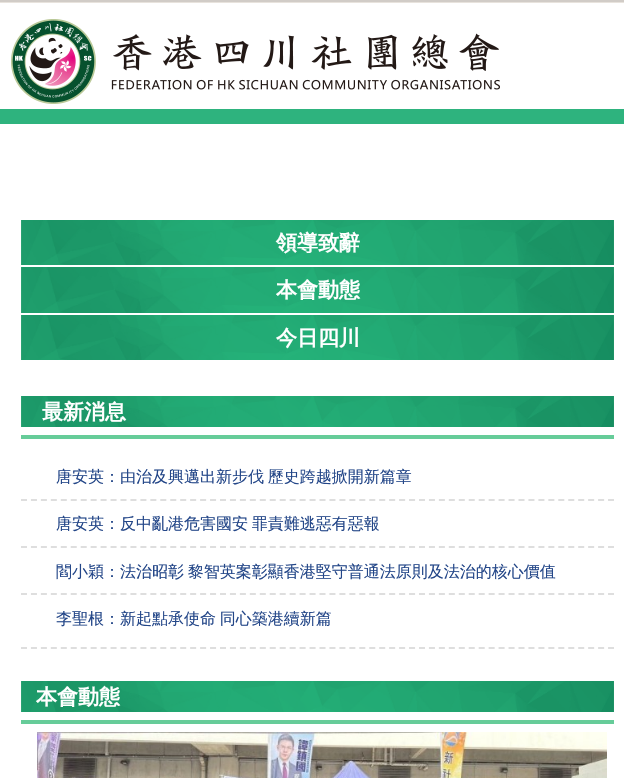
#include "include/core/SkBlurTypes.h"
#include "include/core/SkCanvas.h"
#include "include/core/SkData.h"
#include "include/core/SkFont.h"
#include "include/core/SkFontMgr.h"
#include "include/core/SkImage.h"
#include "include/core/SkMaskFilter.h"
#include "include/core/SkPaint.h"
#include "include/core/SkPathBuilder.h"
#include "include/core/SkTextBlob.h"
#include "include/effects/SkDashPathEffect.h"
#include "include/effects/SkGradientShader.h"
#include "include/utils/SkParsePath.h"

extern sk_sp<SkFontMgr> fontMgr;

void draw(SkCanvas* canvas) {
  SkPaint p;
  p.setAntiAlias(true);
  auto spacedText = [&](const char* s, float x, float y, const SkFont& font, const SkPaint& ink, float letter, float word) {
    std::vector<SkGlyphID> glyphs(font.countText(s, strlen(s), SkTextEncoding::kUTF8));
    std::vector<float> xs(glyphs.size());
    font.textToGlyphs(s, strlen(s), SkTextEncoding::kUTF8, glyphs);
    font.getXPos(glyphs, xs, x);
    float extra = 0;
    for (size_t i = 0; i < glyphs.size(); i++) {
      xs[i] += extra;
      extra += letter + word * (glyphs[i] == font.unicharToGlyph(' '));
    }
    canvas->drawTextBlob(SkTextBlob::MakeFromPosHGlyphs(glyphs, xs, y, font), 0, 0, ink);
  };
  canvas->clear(SK_ColorWHITE);
  p.setColor(SkColorSetRGB(232, 227, 221));
  canvas->drawRect(SkRect::MakeLTRB(0, 2, 624, 3), p);
  p.setColor(SkColorSetRGB(209, 204, 199));
  canvas->drawRect(SkRect::MakeLTRB(0, 0, 624, 2), p);
  canvas->drawImageRect(SkImages::DeferredFromEncodedData(SkData::MakeFromFileName("images/1.png")), SkRect::MakeLTRB(11, 19, 500, 104), SkSamplingOptions());
  p.setColor(SkColorSetRGB(46, 179, 126));
  canvas->drawRect(SkRect::MakeLTRB(0, 109, 624, 124), p);
  canvas->drawImageRect(SkImages::DeferredFromEncodedData(SkData::MakeFromFileName("images/2.png")), SkRect::MakeLTRB(21, 220, 614, 265), SkSamplingOptions());
  canvas->drawImageRect(SkImages::DeferredFromEncodedData(SkData::MakeFromFileName("images/3.png")), SkRect::MakeLTRB(21, 267, 614, 313), SkSamplingOptions());
  canvas->drawImageRect(SkImages::DeferredFromEncodedData(SkData::MakeFromFileName("images/4.png")), SkRect::MakeLTRB(21, 315, 614, 360), SkSamplingOptions());
  canvas->drawImageRect(SkImages::DeferredFromEncodedData(SkData::MakeFromFileName("images/5.png")), SkRect::MakeLTRB(21, 396, 614, 427), SkSamplingOptions());
  p.setColor(SkColorSetRGB(102, 204, 153));
  canvas->drawRect(SkRect::MakeLTRB(21, 435, 614, 439), p);
  p.setStyle(SkPaint::kStroke_Style);
  p.setStrokeWidth(2);
  p.setColor(SkColorSetRGB(222, 222, 222));
  p.setPathEffect(SkDashPathEffect::Make({{6, 3.95f}}, 0));
  canvas->drawPath(SkPathBuilder().moveTo(21, 500).lineTo(614, 500).detach(), p);
  p.setPathEffect(nullptr);
  p.setPathEffect(SkDashPathEffect::Make({{6, 3.95f}}, 0));
  canvas->drawPath(SkPathBuilder().moveTo(21, 547).lineTo(614, 547).detach(), p);
  p.setPathEffect(nullptr);
  p.setPathEffect(SkDashPathEffect::Make({{6, 3.95f}}, 0));
  canvas->drawPath(SkPathBuilder().moveTo(21, 594).lineTo(614, 594).detach(), p);
  p.setPathEffect(nullptr);
  p.setPathEffect(SkDashPathEffect::Make({{6, 3.95f}}, 0));
  canvas->drawPath(SkPathBuilder().moveTo(21, 648).lineTo(614, 648).detach(), p);
  p.setPathEffect(nullptr);
  canvas->drawImageRect(SkImages::DeferredFromEncodedData(SkData::MakeFromFileName("images/5.png")), SkRect::MakeLTRB(21, 681, 614, 712), SkSamplingOptions());
  p.setStyle(SkPaint::kFill_Style);
  p.setColor(SkColorSetRGB(102, 204, 153));
  canvas->drawRect(SkRect::MakeLTRB(21, 720, 614, 724), p);
  canvas->drawImageRect(SkImages::DeferredFromEncodedData(SkData::MakeFromFileName("images/6.png")), SkRect::MakeLTRB(37, 732, 607, 778), SkSamplingOptions());
  SkFont font1(fontMgr->matchFamilyStyle("WenQuanYi Zen Hei", SkFontStyle::Bold()), 21);
  font1.setSubpixel(true);
  p.setColor(SK_ColorWHITE);
  canvas->drawString("領導致辭", 276, 250, font1, p);
  canvas->drawString("本會動態", 276, 297, font1, p);
  canvas->drawString("今日四川", 276, 345, font1, p);
  canvas->drawString("最新消息", 42, 419, font1, p);
  SkFont font2(fontMgr->matchFamilyStyle("WenQuanYi Zen Hei", SkFontStyle(500, SkFontStyle::kNormal_Width, SkFontStyle::kUpright_Slant)), 16);
  font2.setSubpixel(true);
  p.setColor(SkColorSetRGB(35, 70, 136));
  spacedText("唐安英：由治及興邁出新步伐 歷史跨越掀開新篇章", 56, 482, font2, p, 0, -1);
  spacedText("唐安英：反中亂港危害國安 罪責難逃惡有惡報", 56, 529, font2, p, 0, -1);
  spacedText("閻小穎：法治昭彰 黎智英案彰顯香港堅守普通法原則及法治的核心價值", 56, 577, font2, p, 0, -1);
  spacedText("李聖根：新起點承使命 同心築港續新篇", 56, 624, font2, p, 0, -1);
  p.setColor(SK_ColorWHITE);
  canvas->drawString("本會動態", 36, 704, font1, p);
}
